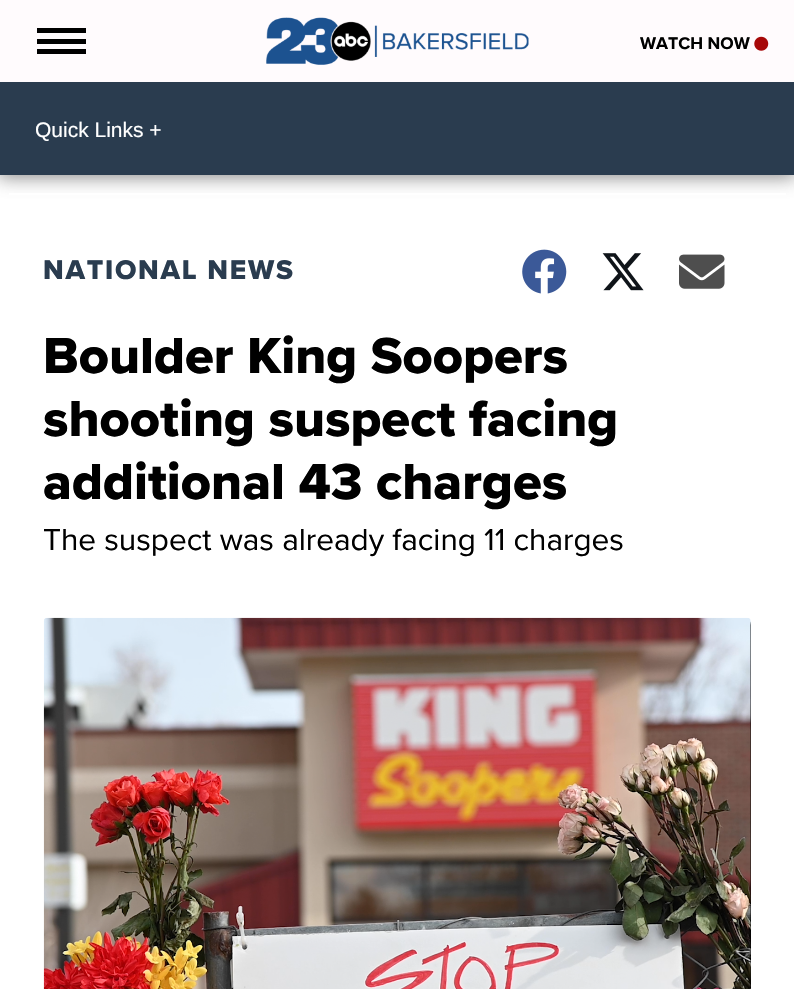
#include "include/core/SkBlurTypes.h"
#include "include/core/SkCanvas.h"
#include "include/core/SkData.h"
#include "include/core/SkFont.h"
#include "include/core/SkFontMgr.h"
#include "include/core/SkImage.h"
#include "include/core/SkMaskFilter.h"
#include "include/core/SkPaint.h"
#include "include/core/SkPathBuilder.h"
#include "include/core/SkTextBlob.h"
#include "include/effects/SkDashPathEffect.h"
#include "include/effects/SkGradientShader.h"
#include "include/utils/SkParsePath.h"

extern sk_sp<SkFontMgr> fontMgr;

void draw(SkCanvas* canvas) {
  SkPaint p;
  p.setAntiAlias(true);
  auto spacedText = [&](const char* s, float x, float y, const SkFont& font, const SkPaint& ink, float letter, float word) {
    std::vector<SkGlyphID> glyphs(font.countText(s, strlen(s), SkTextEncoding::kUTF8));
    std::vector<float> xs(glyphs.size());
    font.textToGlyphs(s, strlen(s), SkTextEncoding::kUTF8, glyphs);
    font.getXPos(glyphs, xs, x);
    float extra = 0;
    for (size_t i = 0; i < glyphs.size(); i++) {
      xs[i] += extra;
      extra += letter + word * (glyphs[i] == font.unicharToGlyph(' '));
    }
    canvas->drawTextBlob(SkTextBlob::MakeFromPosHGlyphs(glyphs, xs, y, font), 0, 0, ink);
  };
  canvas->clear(SK_ColorWHITE);
  p.setColor(SkColorSetARGB(194, 97, 97, 97));
  p.setMaskFilter(SkMaskFilter::MakeBlur(kNormal_SkBlurStyle, 9));
  canvas->drawRect(SkRect::MakeLTRB(-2, -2, 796, 177), p);
  p.setMaskFilter(nullptr);
  p.setColor(SkColorSetRGB(255, 251, 253));
  canvas->drawRect(SkRect::MakeLTRB(0, 0, 794, 82), p);
  p.setColor(SK_ColorBLACK);
  canvas->drawRect(SkRect::MakeLTRB(37, 28, 86, 33), p);
  canvas->drawRect(SkRect::MakeLTRB(37, 39, 86, 44), p);
  canvas->drawRect(SkRect::MakeLTRB(37, 49, 86, 54), p);
  canvas->drawImageRect(SkImages::DeferredFromEncodedData(SkData::MakeFromFileName("images/1.png")), SkRect::MakeLTRB(266, 17, 529, 65), SkSamplingOptions());
  canvas->drawImageRect(SkImages::DeferredFromEncodedData(SkData::MakeFromFileName("images/2.png")), SkRect::MakeLTRB(754, 36, 769, 51), SkSamplingOptions());
  p.setColor(SkColorSetRGB(42, 60, 79));
  canvas->drawRect(SkRect::MakeLTRB(0, 82, 794, 175), p);
  p.setColor(SK_ColorWHITE);
  canvas->drawRect(SkRect::MakeLTRB(9, 193, 786, 195), p);
  canvas->drawImageRect(SkImages::DeferredFromEncodedData(SkData::MakeFromFileName("images/3.png")), SkRect::MakeLTRB(522, 249, 567, 294), SkSamplingOptions());
  canvas->drawImageRect(SkImages::DeferredFromEncodedData(SkData::MakeFromFileName("images/4.png")), SkRect::MakeLTRB(602, 253, 644, 291), SkSamplingOptions());
  canvas->drawImageRect(SkImages::DeferredFromEncodedData(SkData::MakeFromFileName("images/5.png")), SkRect::MakeLTRB(679, 254, 725, 289), SkSamplingOptions());
  p.setColor(SK_ColorBLACK);
  canvas->drawRoundRect(SkRect::MakeLTRB(44, 618, 751, 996), 7, 7, p);
  canvas->drawImageRect(SkImages::DeferredFromEncodedData(SkData::MakeFromFileName("images/6.png")), SkRect::MakeLTRB(43, 617, 751, 989), SkSamplingOptions());
  SkFont font1(fontMgr->matchFamilyStyle("Proxima Nova", SkFontStyle::Bold()), 17.5f);
  font1.setSubpixel(true);
  canvas->drawString("WATCH NOW", 640, 49, font1, p);
  SkFont font2(fontMgr->matchFamilyStyle("Liberation Sans", SkFontStyle::Normal()), 21);
  font2.setSubpixel(true);
  p.setColor(SK_ColorWHITE);
  canvas->drawString("Quick Links +", 35, 137, font2, p);
  SkFont font3(fontMgr->matchFamilyStyle("Proxima Nova", SkFontStyle(800, SkFontStyle::kNormal_Width, SkFontStyle::kUpright_Slant)), 28);
  font3.setSubpixel(true);
  p.setColor(SkColorSetRGB(42, 60, 79));
  spacedText("NATIONAL NEWS", 43, 279, font3, p, 1.75f, 0);
  SkFont font4(fontMgr->matchFamilyStyle("Proxima Nova", SkFontStyle(800, SkFontStyle::kNormal_Width, SkFontStyle::kUpright_Slant)), 52.5f);
  font4.setSubpixel(true);
  p.setColor(SK_ColorBLACK);
  canvas->drawString("Boulder King Soopers", 43, 373, font4, p);
  canvas->drawString("shooting suspect facing", 43, 436, font4, p);
  canvas->drawString("additional 43 charges", 43, 499, font4, p);
  SkFont font5(fontMgr->matchFamilyStyle("Proxima Nova", SkFontStyle::Normal()), 31.5f);
  font5.setSubpixel(true);
  canvas->drawString("The suspect was already facing 11 charges", 43, 550, font5, p);
}
